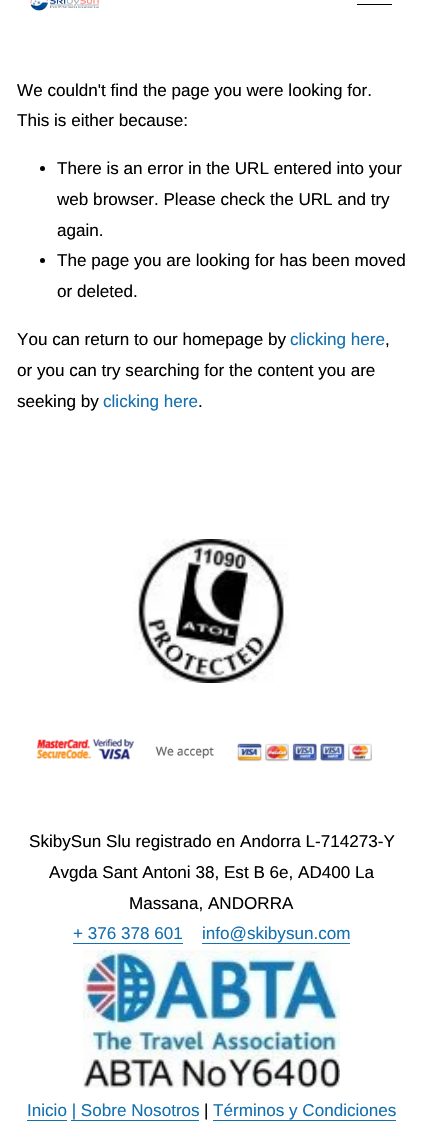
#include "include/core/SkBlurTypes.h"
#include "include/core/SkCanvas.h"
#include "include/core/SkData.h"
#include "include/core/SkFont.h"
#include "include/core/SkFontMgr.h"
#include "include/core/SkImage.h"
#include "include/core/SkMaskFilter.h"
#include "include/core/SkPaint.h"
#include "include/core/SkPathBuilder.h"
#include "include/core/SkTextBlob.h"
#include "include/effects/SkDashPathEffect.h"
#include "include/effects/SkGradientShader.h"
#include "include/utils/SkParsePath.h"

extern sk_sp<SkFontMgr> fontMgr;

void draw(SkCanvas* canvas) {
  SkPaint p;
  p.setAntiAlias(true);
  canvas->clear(SK_ColorWHITE);
  canvas->drawImageRect(SkImages::DeferredFromEncodedData(SkData::MakeFromFileName("images/1.png")), SkRect::MakeLTRB(30, 0, 99, 11), SkSamplingOptions());
  p.setColor(SK_ColorBLACK);
  canvas->drawRect(SkRect::MakeLTRB(357, 4, 392, 5), p);
  canvas->drawCircle(42.5f, 168.5f, 2.5f, p);
  canvas->drawCircle(42.5f, 260.5f, 2.5f, p);
  canvas->drawImageRect(SkImages::DeferredFromEncodedData(SkData::MakeFromFileName("images/2.png")), SkRect::MakeLTRB(133, 539, 289, 683), SkSamplingOptions());
  canvas->drawImageRect(SkImages::DeferredFromEncodedData(SkData::MakeFromFileName("images/3.png")), SkRect::MakeLTRB(36, 738, 372, 762), SkSamplingOptions());
  p.setColor(SkColorSetRGB(20, 112, 175));
  canvas->drawRect(SkRect::MakeLTRB(73, 943, 183, 944), p);
  canvas->drawRect(SkRect::MakeLTRB(202, 943, 350, 944), p);
  canvas->drawImageRect(SkImages::DeferredFromEncodedData(SkData::MakeFromFileName("images/4.png")), SkRect::MakeLTRB(83, 950, 340, 1088), SkSamplingOptions());
  canvas->drawRect(SkRect::MakeLTRB(27, 1120, 67, 1121), p);
  canvas->drawRect(SkRect::MakeLTRB(213, 1120, 396, 1121), p);
  canvas->drawRect(SkRect::MakeLTRB(71, 1120, 199, 1121), p);
  SkFont font1(fontMgr->matchFamilyStyle("Liberation Sans", SkFontStyle::Normal()), 17.1f);
  font1.setSubpixel(true);
  p.setColor(SK_ColorBLACK);
  canvas->drawString("We couldn't find the page you were looking for.", 17, 96, font1, p);
  canvas->drawString("This is either because:", 17, 126, font1, p);
  canvas->drawString("There is an error in the URL entered into your", 57, 174, font1, p);
  canvas->drawString("web browser. Please check the URL and try", 57, 205, font1, p);
  canvas->drawString("again.", 57, 236, font1, p);
  canvas->drawString("The page you are looking for has been moved", 57, 266, font1, p);
  canvas->drawString("or deleted.", 57, 297, font1, p);
  canvas->drawString("You can return to our homepage by", 17, 345, font1, p);
  p.setColor(SkColorSetRGB(20, 112, 175));
  canvas->drawString("clicking here", 290, 345, font1, p);
  p.setColor(SK_ColorBLACK);
  canvas->drawString(",", 385, 345, font1, p);
  canvas->drawString("or you can try searching for the content you are", 17, 376, font1, p);
  canvas->drawString("seeking by", 17, 407, font1, p);
  p.setColor(SkColorSetRGB(20, 112, 175));
  canvas->drawString("clicking here", 103, 407, font1, p);
  p.setColor(SK_ColorBLACK);
  canvas->drawString(".", 198, 407, font1, p);
  canvas->drawString("SkibySun Slu registrado en Andorra L-714273-Y", 29, 847, font1, p);
  canvas->drawString("Avgda Sant Antoni 38, Est B 6e, AD400 La", 49, 878, font1, p);
  canvas->drawString("Massana, ANDORRA", 129, 909, font1, p);
  p.setColor(SkColorSetRGB(20, 112, 175));
  canvas->drawString("+ 376 378 601", 73, 939, font1, p);
  canvas->drawString("info@skibysun.com", 202, 939, font1, p);
  canvas->drawString("Inicio | Sobre Nosotros", 27, 1116, font1, p);
  p.setColor(SK_ColorBLACK);
  canvas->drawString("|", 204, 1116, font1, p);
  p.setColor(SkColorSetRGB(20, 112, 175));
  canvas->drawString("Términos y Condiciones", 213, 1116, font1, p);
}
